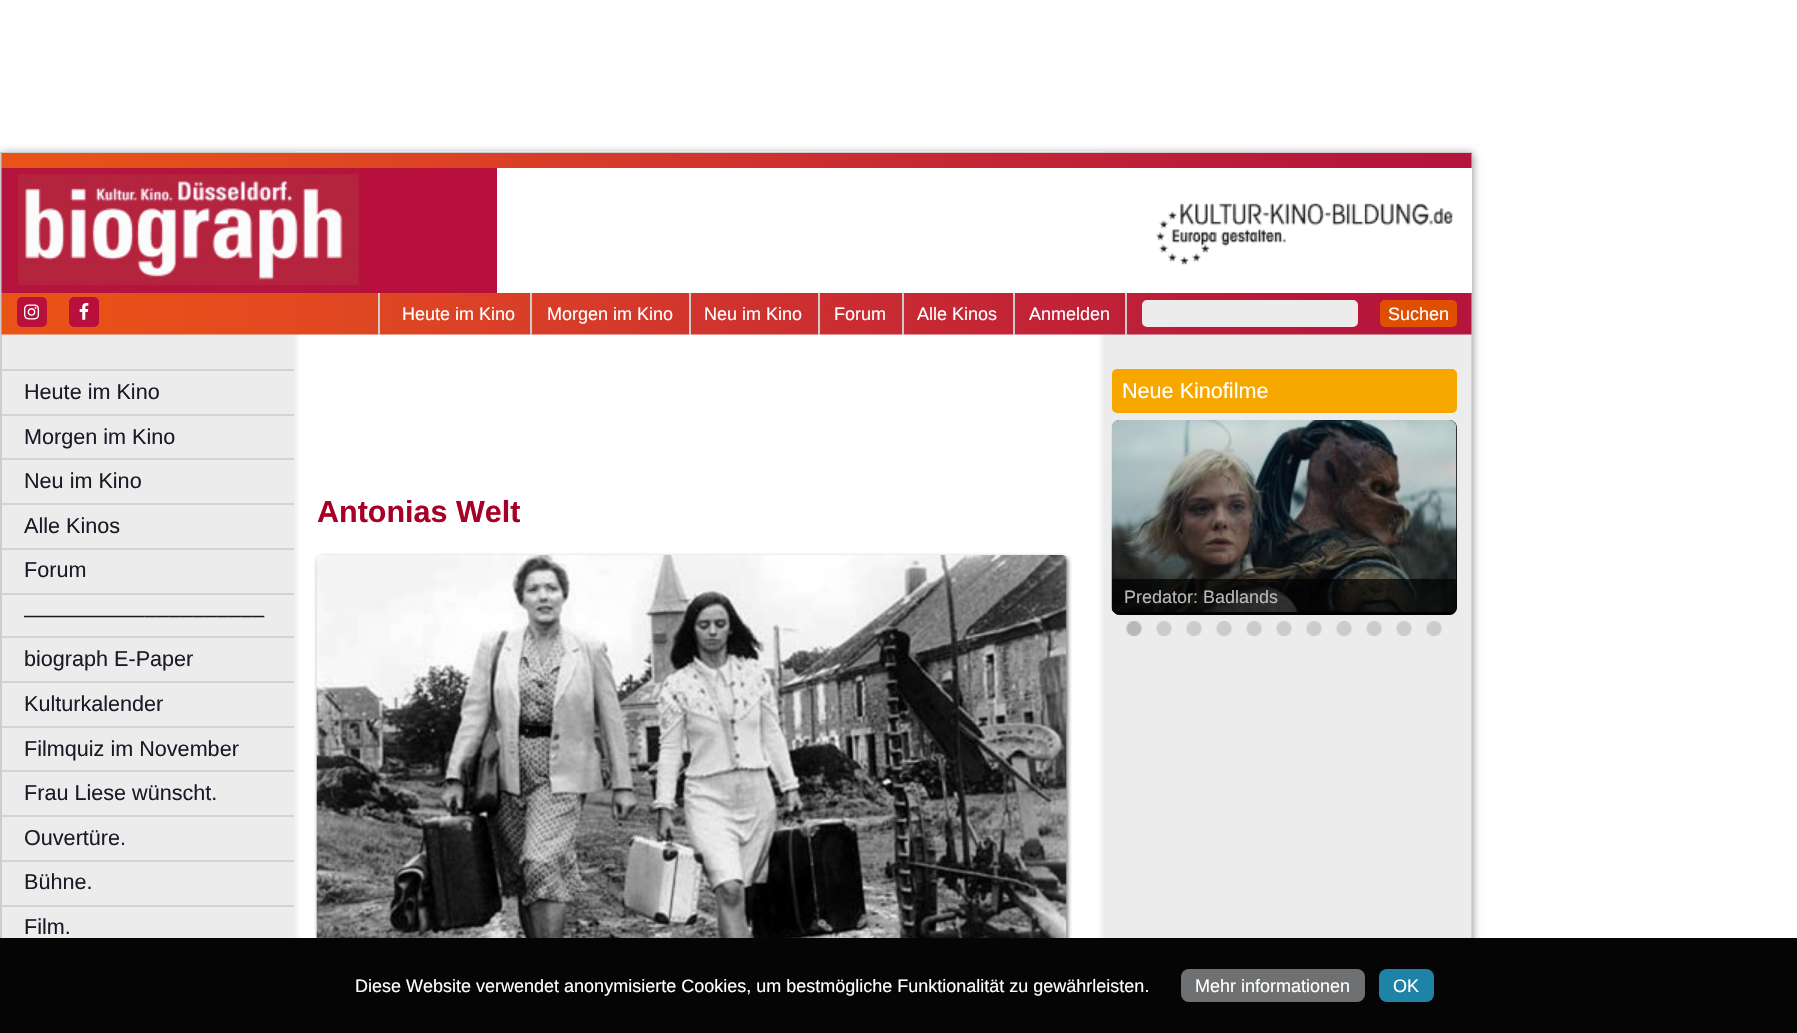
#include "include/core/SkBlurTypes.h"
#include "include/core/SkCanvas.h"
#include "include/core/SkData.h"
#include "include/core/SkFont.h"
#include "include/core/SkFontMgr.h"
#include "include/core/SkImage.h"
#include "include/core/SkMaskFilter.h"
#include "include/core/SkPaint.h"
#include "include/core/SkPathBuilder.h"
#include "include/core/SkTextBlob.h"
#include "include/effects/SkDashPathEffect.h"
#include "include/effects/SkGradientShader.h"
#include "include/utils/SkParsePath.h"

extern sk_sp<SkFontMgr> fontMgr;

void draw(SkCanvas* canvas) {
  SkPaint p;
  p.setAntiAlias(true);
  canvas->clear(SK_ColorWHITE);
  p.setColor(SkColorSetRGB(153, 153, 153));
  p.setMaskFilter(SkMaskFilter::MakeBlur(kNormal_SkBlurStyle, 4));
  canvas->drawRect(SkRect::MakeLTRB(2, 153, 1473, 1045), p);
  p.setMaskFilter(nullptr);
  canvas->drawImageRect(SkImages::DeferredFromEncodedData(SkData::MakeFromFileName("images/1.png")), SkRect::MakeLTRB(1, 151, 1472, 938), SkSamplingOptions());
  p.setColor(SkColorSetRGB(204, 204, 204));
  canvas->drawRect(SkRect::MakeLTRB(0, 152, 1472, 154), p);
  canvas->drawRect(SkRect::MakeLTRB(0, 152, 2, 938), p);
  canvas->drawImageRect(SkImages::DeferredFromEncodedData(SkData::MakeFromFileName("images/2.png")), SkRect::MakeLTRB(1, 153, 1472, 168), SkSamplingOptions());
  canvas->drawImageRect(SkImages::DeferredFromEncodedData(SkData::MakeFromFileName("images/5.png")), SkRect::MakeLTRB(1, 292, 1472, 335), SkSamplingOptions());
  p.setColor(SkColorSetRGB(184, 16, 61));
  canvas->drawRect(SkRect::MakeLTRB(2, 168, 497, 293), p);
  canvas->drawImageRect(SkImages::DeferredFromEncodedData(SkData::MakeFromFileName("images/3.png")), SkRect::MakeLTRB(1, 168, 361, 293), SkSamplingOptions());
  p.setColor(SK_ColorWHITE);
  canvas->drawRect(SkRect::MakeLTRB(497, 168, 1472, 293), p);
  canvas->drawImageRect(SkImages::DeferredFromEncodedData(SkData::MakeFromFileName("images/4.png")), SkRect::MakeLTRB(1156, 202, 1453, 265), SkSamplingOptions());
  p.setColor(SkColorSetRGB(184, 16, 61));
  canvas->drawRoundRect(SkRect::MakeLTRB(17, 297, 47, 327), 5, 5, p);
  canvas->drawImageRect(SkImages::DeferredFromEncodedData(SkData::MakeFromFileName("images/6.png")), SkRect::MakeLTRB(24, 304, 40, 320), SkSamplingOptions());
  canvas->drawRoundRect(SkRect::MakeLTRB(69, 297, 99, 327), 5, 5, p);
  canvas->drawImageRect(SkImages::DeferredFromEncodedData(SkData::MakeFromFileName("images/7.png")), SkRect::MakeLTRB(79, 303, 89, 320), SkSamplingOptions());
  p.setColor(SkColorSetRGB(204, 204, 204));
  canvas->drawRect(SkRect::MakeLTRB(530, 293, 532, 335), p);
  canvas->drawRect(SkRect::MakeLTRB(378, 293, 380, 335), p);
  canvas->drawRect(SkRect::MakeLTRB(689, 293, 691, 335), p);
  canvas->drawRect(SkRect::MakeLTRB(818, 293, 820, 335), p);
  canvas->drawRect(SkRect::MakeLTRB(902, 293, 904, 335), p);
  canvas->drawRect(SkRect::MakeLTRB(1013, 293, 1015, 335), p);
  canvas->drawRect(SkRect::MakeLTRB(1125, 293, 1127, 335), p);
  p.setColor(SkColorSetRGB(236, 236, 236));
  canvas->drawRoundRect(SkRect::MakeLTRB(1142, 300, 1358, 327), 5, 5, p);
  p.setColor(SkColorSetRGB(222, 79, 1));
  canvas->drawRoundRect(SkRect::MakeLTRB(1380, 300, 1457, 327), 5, 5, p);
  p.setColor(SkColorSetRGB(211, 211, 211));
  canvas->drawRect(SkRect::MakeLTRB(2, 369, 294, 371), p);
  canvas->drawRect(SkRect::MakeLTRB(2, 414, 294, 416), p);
  canvas->drawRect(SkRect::MakeLTRB(2, 458, 294, 460), p);
  canvas->drawRect(SkRect::MakeLTRB(2, 503, 294, 505), p);
  canvas->drawRect(SkRect::MakeLTRB(2, 548, 294, 550), p);
  canvas->drawRect(SkRect::MakeLTRB(2, 593, 294, 595), p);
  canvas->drawRect(SkRect::MakeLTRB(2, 636, 294, 638), p);
  canvas->drawRect(SkRect::MakeLTRB(2, 681, 294, 683), p);
  canvas->drawRect(SkRect::MakeLTRB(2, 726, 294, 728), p);
  canvas->drawRect(SkRect::MakeLTRB(2, 770, 294, 772), p);
  canvas->drawRect(SkRect::MakeLTRB(2, 815, 294, 817), p);
  canvas->drawRect(SkRect::MakeLTRB(2, 860, 294, 862), p);
  canvas->drawRect(SkRect::MakeLTRB(2, 905, 294, 907), p);
  p.setColor(SkColorSetRGB(119, 119, 119));
  p.setMaskFilter(SkMaskFilter::MakeBlur(kNormal_SkBlurStyle, 2));
  canvas->drawRoundRect(SkRect::MakeLTRB(318, 557, 1068, 977), 5, 5, p);
  p.setMaskFilter(nullptr);
  canvas->drawImageRect(SkImages::DeferredFromEncodedData(SkData::MakeFromFileName("images/8.png")), SkRect::MakeLTRB(316, 555, 1067, 938), SkSamplingOptions());
  p.setColor(SkColorSetRGB(246, 168, 0));
  canvas->drawRoundRect(SkRect::MakeLTRB(1112, 369, 1457, 413), 5, 5, p);
  p.setColor(SK_ColorBLACK);
  canvas->drawRoundRect(SkRect::MakeLTRB(1112, 420, 1457, 615), 8, 8, p);
  canvas->drawImageRect(SkImages::DeferredFromEncodedData(SkData::MakeFromFileName("images/9.png")), SkRect::MakeLTRB(1111, 420, 1457, 612), SkSamplingOptions());
  p.setColor(SkColorSetARGB(179, 0, 0, 0));
  canvas->drawPath(SkPathBuilder().moveTo(1112, 579).lineTo(1457, 579).lineTo(1457, 607).cubicTo(1457, 611.5f, 1453.5f, 615, 1449, 615).lineTo(1120, 615).cubicTo(1115.5f, 615, 1112, 611.5f, 1112, 607).close().detach(), p);
  canvas->drawImageRect(SkImages::DeferredFromEncodedData(SkData::MakeFromFileName("images/10.png")), SkRect::MakeLTRB(1126, 621, 1142, 636), SkSamplingOptions());
  canvas->drawImageRect(SkImages::DeferredFromEncodedData(SkData::MakeFromFileName("images/11.png")), SkRect::MakeLTRB(1156, 621, 1172, 636), SkSamplingOptions());
  canvas->drawImageRect(SkImages::DeferredFromEncodedData(SkData::MakeFromFileName("images/11.png")), SkRect::MakeLTRB(1186, 621, 1202, 636), SkSamplingOptions());
  canvas->drawImageRect(SkImages::DeferredFromEncodedData(SkData::MakeFromFileName("images/11.png")), SkRect::MakeLTRB(1216, 621, 1232, 636), SkSamplingOptions());
  canvas->drawImageRect(SkImages::DeferredFromEncodedData(SkData::MakeFromFileName("images/11.png")), SkRect::MakeLTRB(1246, 621, 1262, 636), SkSamplingOptions());
  canvas->drawImageRect(SkImages::DeferredFromEncodedData(SkData::MakeFromFileName("images/12.png")), SkRect::MakeLTRB(1276, 621, 1292, 636), SkSamplingOptions());
  canvas->drawImageRect(SkImages::DeferredFromEncodedData(SkData::MakeFromFileName("images/13.png")), SkRect::MakeLTRB(1306, 621, 1322, 636), SkSamplingOptions());
  canvas->drawImageRect(SkImages::DeferredFromEncodedData(SkData::MakeFromFileName("images/13.png")), SkRect::MakeLTRB(1336, 621, 1352, 636), SkSamplingOptions());
  canvas->drawImageRect(SkImages::DeferredFromEncodedData(SkData::MakeFromFileName("images/13.png")), SkRect::MakeLTRB(1366, 621, 1382, 636), SkSamplingOptions());
  canvas->drawImageRect(SkImages::DeferredFromEncodedData(SkData::MakeFromFileName("images/13.png")), SkRect::MakeLTRB(1396, 621, 1412, 636), SkSamplingOptions());
  canvas->drawImageRect(SkImages::DeferredFromEncodedData(SkData::MakeFromFileName("images/13.png")), SkRect::MakeLTRB(1426, 621, 1442, 636), SkSamplingOptions());
  p.setColor(SkColorSetRGB(5, 5, 5));
  canvas->drawRect(SkRect::MakeLTRB(0, 938, 1797, 1033), p);
  p.setColor(SkColorSetRGB(110, 112, 113));
  canvas->drawRoundRect(SkRect::MakeLTRB(1181, 969, 1365, 1002), 8, 8, p);
  p.setColor(SkColorSetRGB(31, 131, 168));
  canvas->drawRoundRect(SkRect::MakeLTRB(1379, 969, 1434, 1002), 8, 8, p);
  SkFont font1(fontMgr->matchFamilyStyle("Liberation Sans", SkFontStyle::Normal()), 18);
  font1.setSubpixel(true);
  p.setColor(SK_ColorWHITE);
  canvas->drawString("Heute im Kino", 402, 320, font1, p);
  canvas->drawString("Morgen im Kino", 547, 320, font1, p);
  canvas->drawString("Neu im Kino", 704, 320, font1, p);
  canvas->drawString("Forum", 834, 320, font1, p);
  canvas->drawString("Alle Kinos", 917, 320, font1, p);
  canvas->drawString("Anmelden", 1029, 320, font1, p);
  canvas->drawString("Suchen", 1388, 320, font1, p);
  SkFont font2(fontMgr->matchFamilyStyle("Liberation Sans", SkFontStyle::Normal()), 21.6f);
  font2.setSubpixel(true);
  p.setColor(SkColorSetRGB(25, 28, 38));
  canvas->drawString("Heute im Kino", 24, 399, font2, p);
  canvas->drawString("Morgen im Kino", 24, 444, font2, p);
  canvas->drawString("Neu im Kino", 24, 488, font2, p);
  canvas->drawString("Alle Kinos", 24, 533, font2, p);
  canvas->drawString("Forum", 24, 577, font2, p);
  canvas->drawString("––––––––––––––––––––", 24, 622, font2, p);
  canvas->drawString("biograph E-Paper", 24, 666, font2, p);
  canvas->drawString("Kulturkalender", 24, 711, font2, p);
  canvas->drawString("Filmquiz im November", 24, 756, font2, p);
  canvas->drawString("Frau Liese wünscht.", 24, 800, font2, p);
  canvas->drawString("Ouvertüre.", 24, 845, font2, p);
  canvas->drawString("Bühne.", 24, 889, font2, p);
  canvas->drawString("Film.", 24, 934, font2, p);
  SkFont font3(fontMgr->matchFamilyStyle("Liberation Sans", SkFontStyle::Bold()), 30.5f);
  font3.setSubpixel(true);
  p.setColor(SkColorSetRGB(166, 0, 39));
  canvas->drawString("Antonias Welt", 317, 522, font3, p);
  p.setColor(SK_ColorWHITE);
  canvas->drawString("Neue Kinofilme", 1122, 398, font2, p);
  p.setColor(SkColorSetRGB(185, 185, 185));
  canvas->drawString("Predator: Badlands", 1124, 603, font1, p);
  p.setColor(SK_ColorWHITE);
  canvas->drawString("Diese Website verwendet anonymisierte Cookies, um bestmögliche Funktionalität zu gewährleisten.", 355, 992, font1, p);
  canvas->drawString("Mehr informationen", 1195, 992, font1, p);
  canvas->drawString("OK", 1393, 992, font1, p);
}
